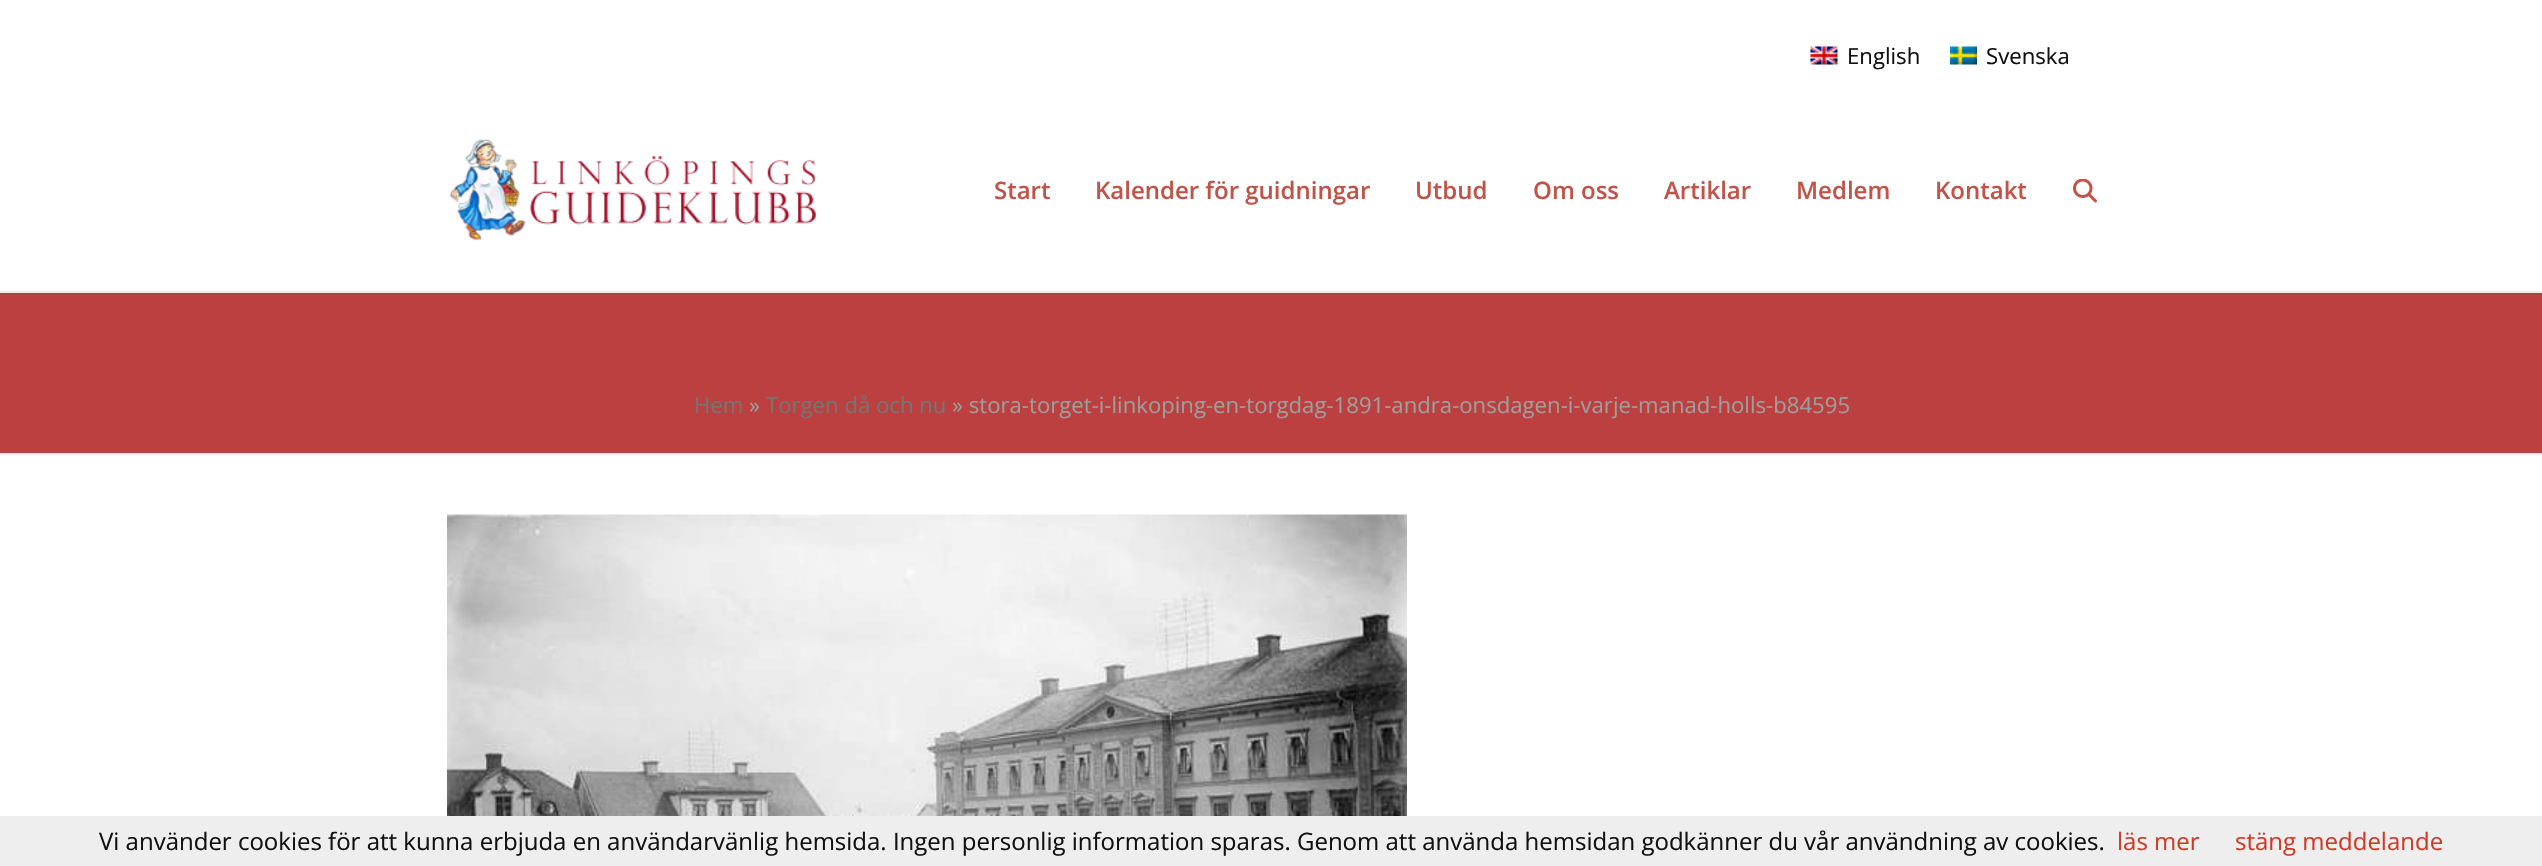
#include "include/core/SkBlurTypes.h"
#include "include/core/SkCanvas.h"
#include "include/core/SkData.h"
#include "include/core/SkFont.h"
#include "include/core/SkFontMgr.h"
#include "include/core/SkImage.h"
#include "include/core/SkMaskFilter.h"
#include "include/core/SkPaint.h"
#include "include/core/SkPathBuilder.h"
#include "include/core/SkTextBlob.h"
#include "include/effects/SkDashPathEffect.h"
#include "include/effects/SkGradientShader.h"
#include "include/utils/SkParsePath.h"

extern sk_sp<SkFontMgr> fontMgr;

void draw(SkCanvas* canvas) {
  SkPaint p;
  p.setAntiAlias(true);
  canvas->clear(SK_ColorWHITE);
  canvas->drawImageRect(SkImages::DeferredFromEncodedData(SkData::MakeFromFileName("images/1.png")), SkRect::MakeLTRB(1810, 46, 1838, 65), SkSamplingOptions());
  canvas->drawImageRect(SkImages::DeferredFromEncodedData(SkData::MakeFromFileName("images/2.png")), SkRect::MakeLTRB(1950, 46, 1977, 65), SkSamplingOptions());
  canvas->drawImageRect(SkImages::DeferredFromEncodedData(SkData::MakeFromFileName("images/3.png")), SkRect::MakeLTRB(449, 139, 816, 241), SkSamplingOptions());
  canvas->drawImageRect(SkImages::DeferredFromEncodedData(SkData::MakeFromFileName("images/4.png")), SkRect::MakeLTRB(2073, 179, 2097, 203), SkSamplingOptions());
  p.setColor(SkColorSetRGB(188, 64, 64));
  canvas->drawRect(SkRect::MakeLTRB(0, 293, 2542, 453), p);
  p.setColor(SkColorSetRGB(238, 238, 238));
  canvas->drawRect(SkRect::MakeLTRB(0, 291, 2542, 293), p);
  canvas->drawRect(SkRect::MakeLTRB(0, 453, 2542, 455), p);
  canvas->drawImageRect(SkImages::DeferredFromEncodedData(SkData::MakeFromFileName("images/5.png")), SkRect::MakeLTRB(447, 514, 1407, 816), SkSamplingOptions());
  canvas->drawRect(SkRect::MakeLTRB(0, 816, 2542, 866), p);
  SkFont font1(fontMgr->matchFamilyStyle("Open Sans", SkFontStyle::Normal()), 22.15f);
  font1.setSubpixel(true);
  p.setColor(SkColorSetRGB(17, 17, 17));
  canvas->drawString("English", 1847, 64, font1, p);
  canvas->drawString("Svenska", 1986, 64, font1, p);
  SkFont font2(fontMgr->matchFamilyStyle("Open Sans", SkFontStyle(600, SkFontStyle::kNormal_Width, SkFontStyle::kUpright_Slant)), 24);
  font2.setSubpixel(true);
  p.setColor(SkColorSetRGB(193, 83, 72));
  canvas->drawString("Start", 994, 199, font2, p);
  canvas->drawString("Kalender för guidningar", 1095, 199, font2, p);
  canvas->drawString("Utbud", 1415, 199, font2, p);
  canvas->drawString("Om oss", 1533, 199, font2, p);
  canvas->drawString("Artiklar", 1664, 199, font2, p);
  canvas->drawString("Medlem", 1796, 199, font2, p);
  canvas->drawString("Kontakt", 1935, 199, font2, p);
  p.setColor(SkColorSetRGB(117, 117, 117));
  canvas->drawString("Hem", 694, 413, font1, p);
  p.setColor(SkColorSetRGB(158, 158, 158));
  canvas->drawString("»", 749, 413, font1, p);
  p.setColor(SkColorSetRGB(117, 117, 117));
  canvas->drawString("Torgen då och nu", 766, 413, font1, p);
  p.setColor(SkColorSetRGB(158, 158, 158));
  canvas->drawString("» stora-torget-i-linkoping-en-torgdag-1891-andra-onsdagen-i-varje-manad-holls-b84595", 952, 413, font1, p);
  SkFont font3(fontMgr->matchFamilyStyle("Open Sans", SkFontStyle::Normal()), 24);
  font3.setSubpixel(true);
  p.setColor(SkColorSetRGB(17, 17, 17));
  canvas->drawString("Vi använder cookies för att kunna erbjuda en användarvänlig hemsida. Ingen personlig information sparas. Genom att använda hemsidan godkänner du vår användning av cookies.", 99, 850, font3, p);
  p.setColor(SkColorSetRGB(204, 59, 40));
  canvas->drawString("läs mer", 2117, 850, font3, p);
  canvas->drawString("stäng meddelande", 2235, 850, font3, p);
}
